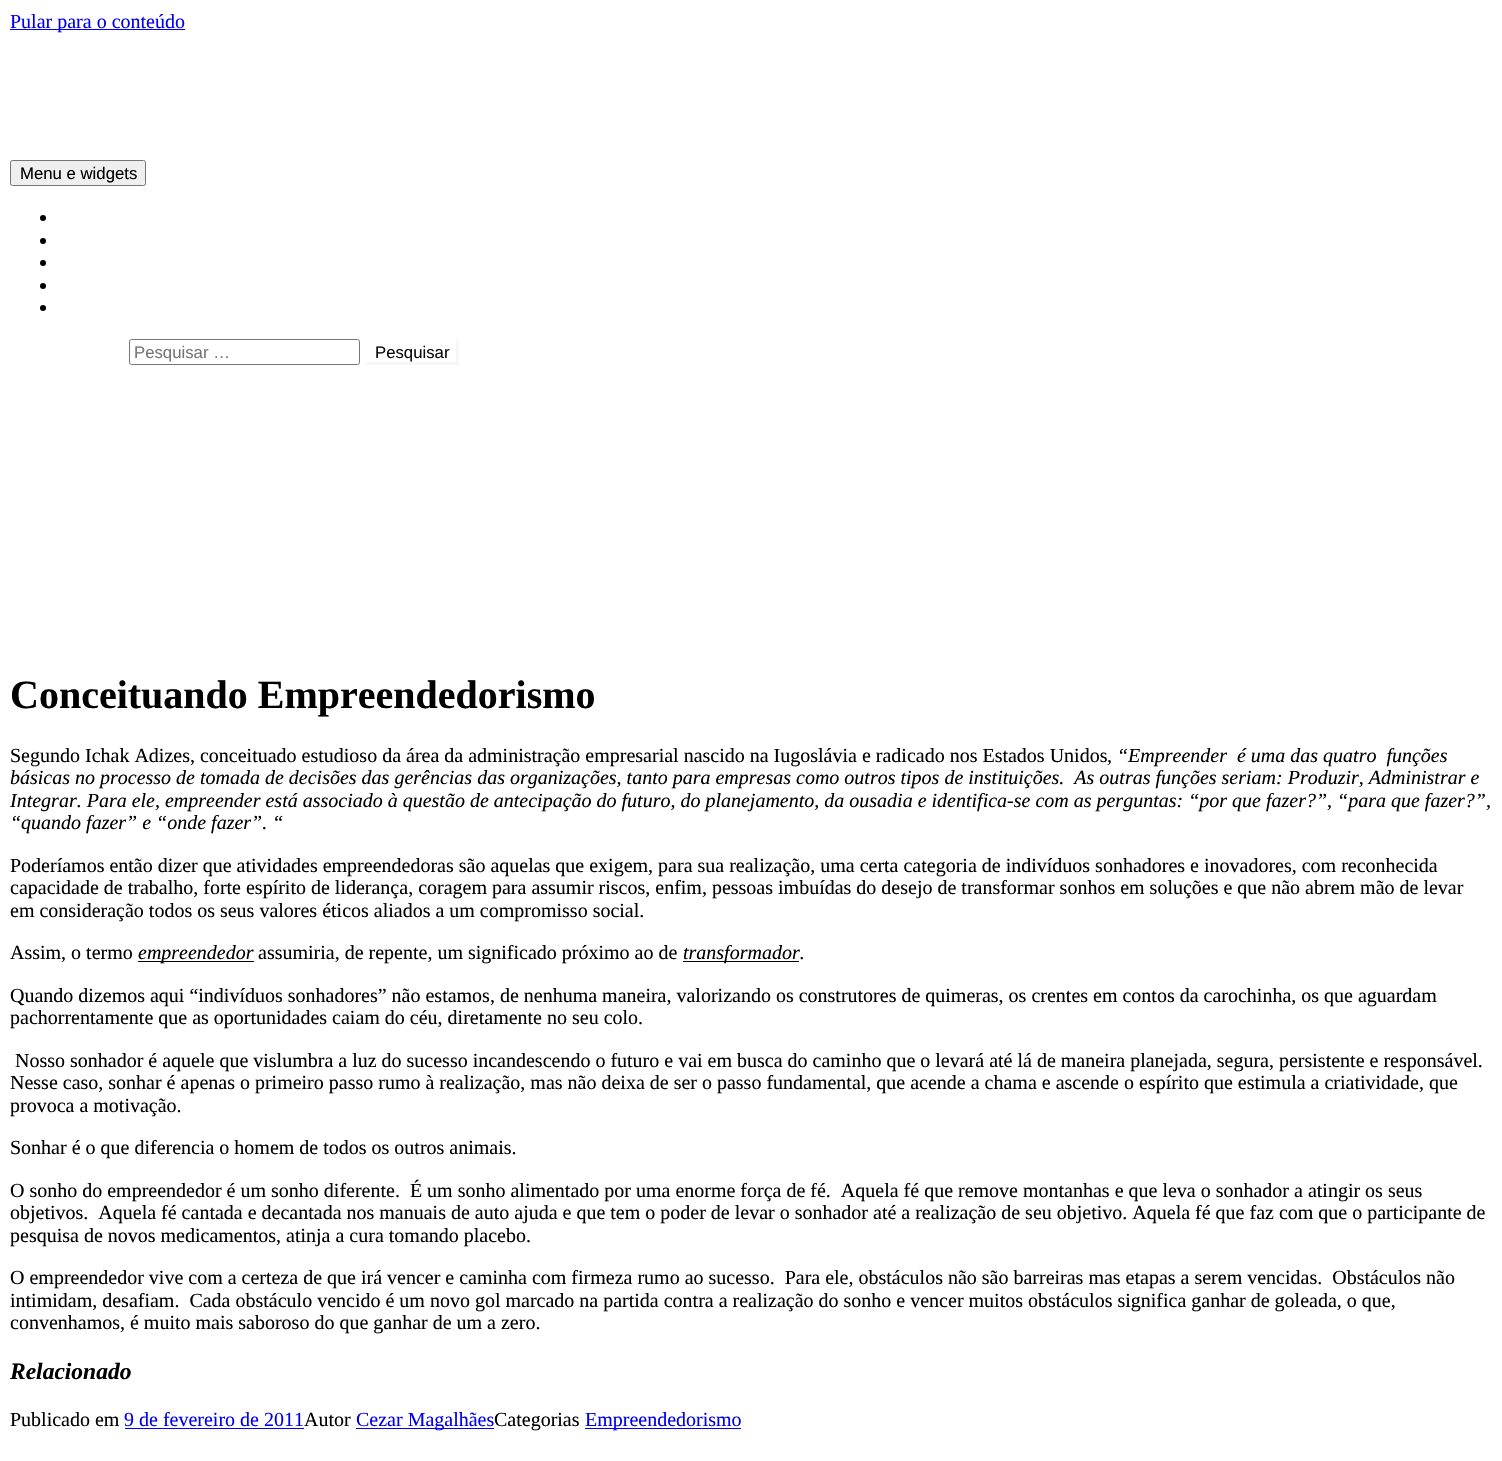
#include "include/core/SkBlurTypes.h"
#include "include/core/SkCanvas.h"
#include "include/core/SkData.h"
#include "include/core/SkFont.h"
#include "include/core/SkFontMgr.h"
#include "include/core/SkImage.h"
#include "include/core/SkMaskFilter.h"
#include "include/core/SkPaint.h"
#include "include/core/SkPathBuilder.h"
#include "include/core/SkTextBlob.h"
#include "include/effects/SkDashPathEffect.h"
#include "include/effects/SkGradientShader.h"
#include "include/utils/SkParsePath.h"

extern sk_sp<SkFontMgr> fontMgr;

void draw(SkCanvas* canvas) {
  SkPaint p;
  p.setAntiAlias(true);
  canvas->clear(SK_ColorWHITE);
  p.setColor(SkColorSetRGB(0, 0, 238));
  canvas->drawRect(SkRect::MakeLTRB(10, 29, 185, 30), p);
  p.setColor(SkColorSetRGB(239, 239, 239));
  canvas->drawRoundRect(SkRect::MakeLTRB(10.5f, 160.5f, 145.5f, 185.5f), 2, 2, p);
  p.setStyle(SkPaint::kStroke_Style);
  p.setStrokeWidth(1);
  p.setColor(SkColorSetRGB(118, 118, 118));
  canvas->drawRoundRect(SkRect::MakeLTRB(10.5f, 160.5f, 145.5f, 185.5f), 2, 2, p);
  p.setStyle(SkPaint::kFill_Style);
  p.setColor(SK_ColorBLACK);
  canvas->drawCircle(43, 218, 3, p);
  canvas->drawCircle(43, 241, 3, p);
  canvas->drawCircle(43, 263, 3, p);
  canvas->drawCircle(43, 286, 3, p);
  canvas->drawCircle(43, 308, 3, p);
  p.setStyle(SkPaint::kStroke_Style);
  p.setColor(SkColorSetRGB(118, 118, 118));
  canvas->drawRoundRect(SkRect::MakeLTRB(129.5f, 339.5f, 359.5f, 364.5f), 2, 2, p);
  p.setStyle(SkPaint::kFill_Style);
  p.setColor(SkColorSetRGB(247, 247, 247));
  canvas->drawPath(SkPathBuilder().moveTo(459, 339).lineTo(459, 365).lineTo(456, 362.5f).lineTo(456, 341).close().detach(), p);
  p.setColor(SkColorSetARGB(26, 170, 170, 170));
  canvas->drawPath(SkPathBuilder().moveTo(459, 365).lineTo(365, 365).lineTo(368, 362).lineTo(456, 362).close().detach(), p);
  p.setColor(SK_ColorBLACK);
  canvas->drawRect(SkRect::MakeLTRB(138, 961, 254, 962), p);
  canvas->drawRect(SkRect::MakeLTRB(683, 961, 799, 962), p);
  p.setColor(SkColorSetRGB(0, 0, 238));
  canvas->drawRect(SkRect::MakeLTRB(125, 1428, 304, 1429), p);
  canvas->drawRect(SkRect::MakeLTRB(356, 1428, 494, 1429), p);
  canvas->drawRect(SkRect::MakeLTRB(585, 1428, 741, 1429), p);
  SkFont font1(fontMgr->matchFamilyStyle("Liberation Serif", SkFontStyle::Normal()), 20);
  font1.setSubpixel(true);
  canvas->drawString("Pular para o conteúdo", 10, 28, font1, p);
  SkFont font2(fontMgr->matchFamilyStyle("Liberation Sans", SkFontStyle::Normal()), 16.75f);
  font2.setSubpixel(true);
  p.setColor(SK_ColorBLACK);
  canvas->drawString("Menu e widgets", 20, 179, font2, p);
  p.setColor(SkColorSetRGB(117, 117, 117));
  canvas->drawString("Pesquisar …", 134, 358, font2, p);
  p.setColor(SkColorSetRGB(10, 10, 10));
  canvas->drawString("Pesquisar", 375, 358, font2, p);
  SkFont font3(fontMgr->matchFamilyStyle("Liberation Serif", SkFontStyle::Bold()), 40);
  font3.setSubpixel(true);
  p.setColor(SK_ColorBLACK);
  canvas->drawString("Conceituando Empreendedorismo", 10, 708, font3, p);
  canvas->drawString("Segundo Ichak Adizes, conceituado estudioso da área da administração empresarial nascido na Iugoslávia e radicado nos Estados Unidos", 10, 762, font1, p);
  SkFont font4(fontMgr->matchFamilyStyle("Liberation Serif", SkFontStyle::Italic()), 20);
  font4.setSubpixel(true);
  canvas->drawString(", “Empreender  é uma das quatro  funções", 1107, 762, font4, p);
  canvas->drawString("básicas no processo de tomada de decisões das gerências das organizações, tanto para empresas como outros tipos de instituições.  As outras funções seriam: Produzir, Administrar e", 10, 784, font4, p);
  canvas->drawString("Integrar. Para ele, empreender está associado à questão de antecipação do futuro, do planejamento, da ousadia e identifica-se com as perguntas: “por que fazer?”, “para que fazer?”,", 10, 807, font4, p);
  canvas->drawString("“quando fazer” e “onde fazer”. “", 10, 829, font4, p);
  canvas->drawString("Poderíamos então dizer que atividades empreendedoras são aquelas que exigem, para sua realização, uma certa categoria de indivíduos sonhadores e inovadores, com reconhecida", 10, 872, font1, p);
  canvas->drawString("capacidade de trabalho, forte espírito de liderança, coragem para assumir riscos, enfim, pessoas imbuídas do desejo de transformar sonhos em soluções e que não abrem mão de levar", 10, 894, font1, p);
  canvas->drawString("em consideração todos os seus valores éticos aliados a um compromisso social.", 10, 917, font1, p);
  canvas->drawString("Assim, o termo", 10, 959, font1, p);
  canvas->drawString("empreendedor", 138, 959, font4, p);
  canvas->drawString("assumiria, de repente, um significado próximo ao de", 258, 959, font1, p);
  canvas->drawString("transformador.", 683, 959, font4, p);
  canvas->drawString("Quando dizemos aqui “indivíduos sonhadores” não estamos, de nenhuma maneira, valorizando os construtores de quimeras, os crentes em contos da carochinha, os que aguardam", 10, 1002, font1, p);
  canvas->drawString("pachorrentamente que as oportunidades caiam do céu, diretamente no seu colo.", 10, 1024, font1, p);
  canvas->drawString("Nosso sonhador é aquele que vislumbra a luz do sucesso incandescendo o futuro e vai em busca do caminho que o levará até lá de maneira planejada, segura, persistente e responsável.", 15, 1067, font1, p);
  canvas->drawString("Nesse caso, sonhar é apenas o primeiro passo rumo à realização, mas não deixa de ser o passo fundamental, que acende a chama e ascende o espírito que estimula a criatividade, que", 10, 1089, font1, p);
  canvas->drawString("provoca a motivação.", 10, 1112, font1, p);
  canvas->drawString("Sonhar é o que diferencia o homem de todos os outros animais.", 10, 1154, font1, p);
  canvas->drawString("O sonho do empreendedor é um sonho diferente.  É um sonho alimentado por uma enorme força de fé.  Aquela fé que remove montanhas e que leva o sonhador a atingir os seus", 10, 1197, font1, p);
  canvas->drawString("objetivos.  Aquela fé cantada e decantada nos manuais de auto ajuda e que tem o poder de levar o sonhador até a realização de seu objetivo. Aquela fé que faz com que o participante de", 10, 1219, font1, p);
  canvas->drawString("pesquisa de novos medicamentos, atinja a cura tomando placebo.", 10, 1242, font1, p);
  canvas->drawString("O empreendedor vive com a certeza de que irá vencer e caminha com firmeza rumo ao sucesso.  Para ele, obstáculos não são barreiras mas etapas a serem vencidas.  Obstáculos não", 10, 1284, font1, p);
  canvas->drawString("intimidam, desafiam.  Cada obstáculo vencido é um novo gol marcado na partida contra a realização do sonho e vencer muitos obstáculos significa ganhar de goleada, o que,", 10, 1307, font1, p);
  canvas->drawString("convenhamos, é muito mais saboroso do que ganhar de um a zero.", 10, 1329, font1, p);
  SkFont font5(fontMgr->matchFamilyStyle("Liberation Serif", SkFontStyle::BoldItalic()), 23.5f);
  font5.setSubpixel(true);
  canvas->drawString("Relacionado", 10, 1379, font5, p);
  canvas->drawString("Publicado em", 10, 1426, font1, p);
  p.setColor(SkColorSetRGB(0, 0, 238));
  canvas->drawString("9 de fevereiro de 2011", 124, 1426, font1, p);
  p.setColor(SK_ColorBLACK);
  canvas->drawString("Autor", 304, 1426, font1, p);
  p.setColor(SkColorSetRGB(0, 0, 238));
  canvas->drawString("Cezar Magalhães", 356, 1426, font1, p);
  p.setColor(SK_ColorBLACK);
  canvas->drawString("Categorias", 494, 1426, font1, p);
  p.setColor(SkColorSetRGB(0, 0, 238));
  canvas->drawString("Empreendedorismo", 585, 1426, font1, p);
}
